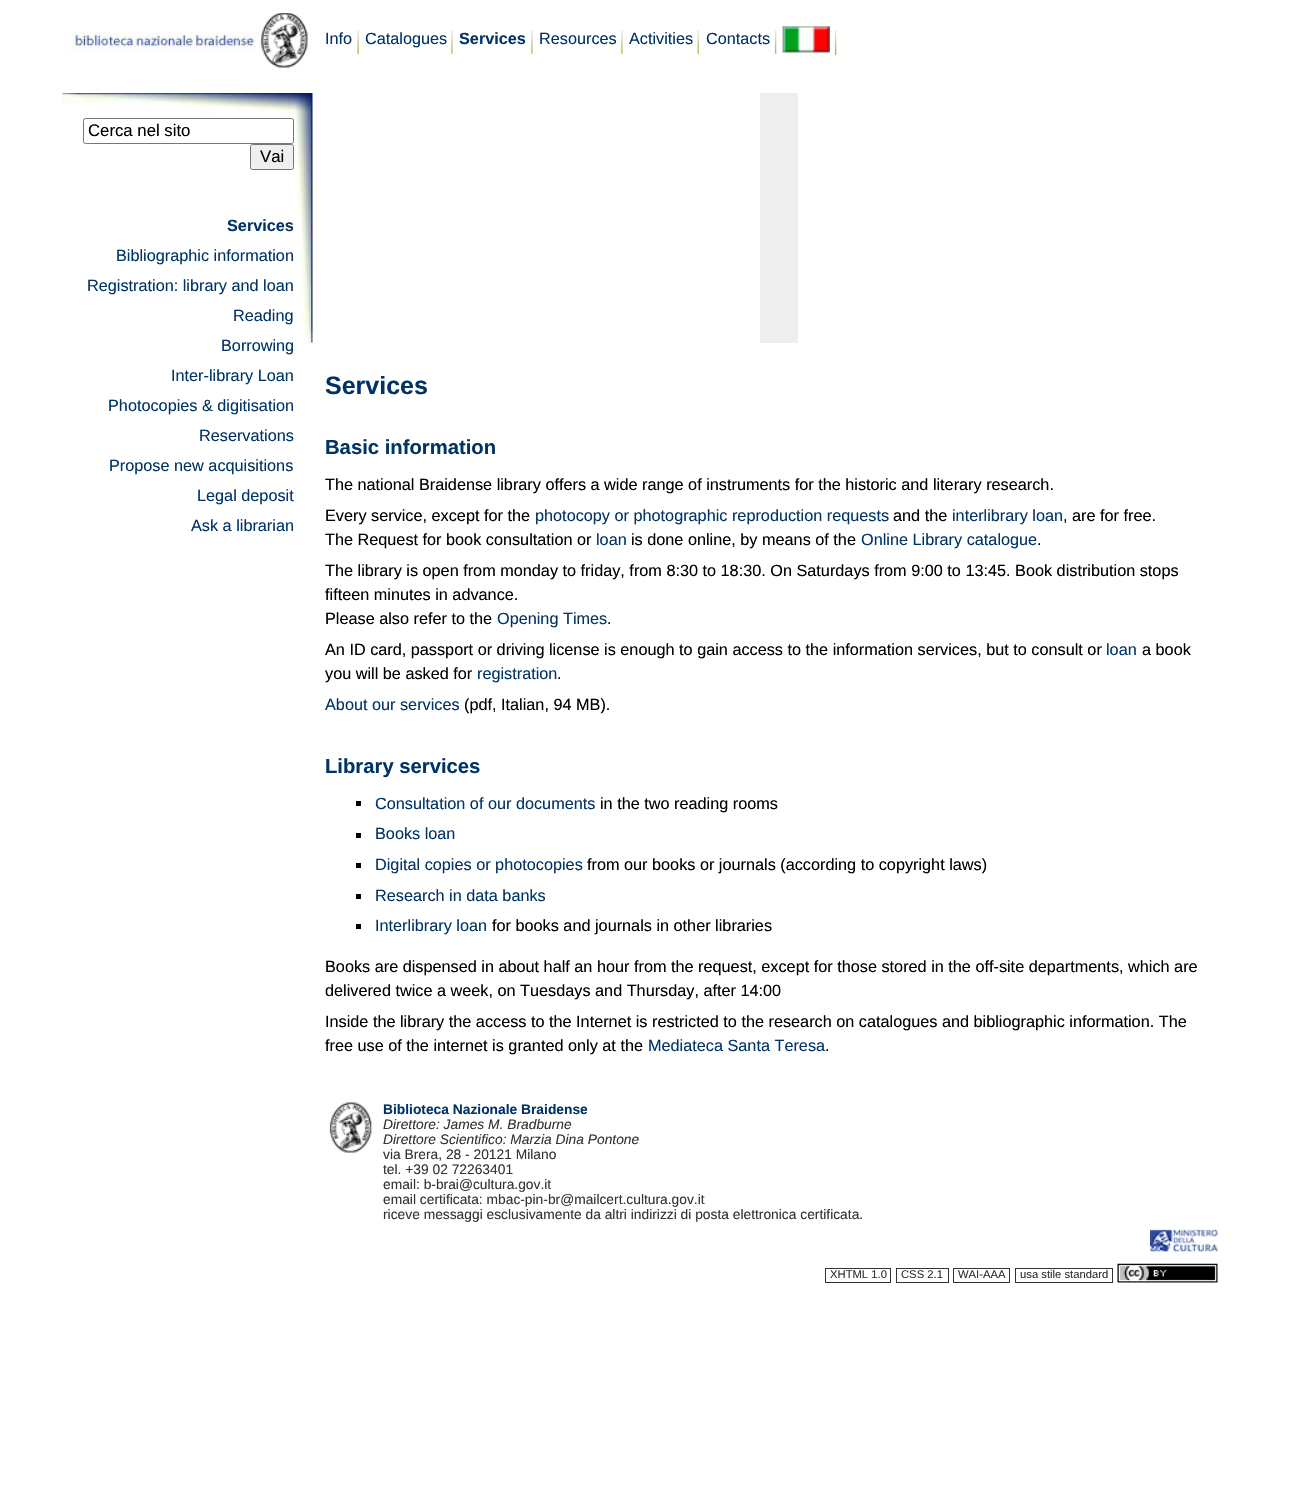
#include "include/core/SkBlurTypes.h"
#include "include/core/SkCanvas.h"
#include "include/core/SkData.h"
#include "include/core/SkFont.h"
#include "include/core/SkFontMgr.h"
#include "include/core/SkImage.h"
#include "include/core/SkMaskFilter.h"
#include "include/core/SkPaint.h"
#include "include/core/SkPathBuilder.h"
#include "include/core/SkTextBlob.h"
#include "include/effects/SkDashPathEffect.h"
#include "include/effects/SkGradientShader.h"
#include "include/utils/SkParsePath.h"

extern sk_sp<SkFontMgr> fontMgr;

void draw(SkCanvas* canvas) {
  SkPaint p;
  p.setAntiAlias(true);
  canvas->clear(SK_ColorWHITE);
  canvas->drawImageRect(SkImages::DeferredFromEncodedData(SkData::MakeFromFileName("images/1.png")), SkRect::MakeLTRB(63, 13, 308, 68), SkSamplingOptions());
  canvas->drawImageRect(SkImages::DeferredFromEncodedData(SkData::MakeFromFileName("images/2.png")), SkRect::MakeLTRB(357, 30, 359, 54), SkSamplingOptions());
  canvas->drawImageRect(SkImages::DeferredFromEncodedData(SkData::MakeFromFileName("images/3.png")), SkRect::MakeLTRB(451, 30, 453, 54), SkSamplingOptions());
  canvas->drawImageRect(SkImages::DeferredFromEncodedData(SkData::MakeFromFileName("images/3.png")), SkRect::MakeLTRB(531, 30, 533, 54), SkSamplingOptions());
  canvas->drawImageRect(SkImages::DeferredFromEncodedData(SkData::MakeFromFileName("images/3.png")), SkRect::MakeLTRB(621, 30, 623, 54), SkSamplingOptions());
  canvas->drawImageRect(SkImages::DeferredFromEncodedData(SkData::MakeFromFileName("images/4.png")), SkRect::MakeLTRB(697, 30, 699, 54), SkSamplingOptions());
  canvas->drawImageRect(SkImages::DeferredFromEncodedData(SkData::MakeFromFileName("images/5.png")), SkRect::MakeLTRB(774, 30, 777, 54), SkSamplingOptions());
  canvas->drawImageRect(SkImages::DeferredFromEncodedData(SkData::MakeFromFileName("images/6.png")), SkRect::MakeLTRB(834, 30, 837, 55), SkSamplingOptions());
  canvas->drawImageRect(SkImages::DeferredFromEncodedData(SkData::MakeFromFileName("images/7.png")), SkRect::MakeLTRB(782, 26, 830, 53), SkSamplingOptions());
  canvas->drawImageRect(SkImages::DeferredFromEncodedData(SkData::MakeFromFileName("images/8.png")), SkRect::MakeLTRB(62, 93, 313, 343), SkSamplingOptions());
  p.setColor(SK_ColorWHITE);
  canvas->drawRoundRect(SkRect::MakeLTRB(83.5f, 118.5f, 293.5f, 143.5f), 2, 2, p);
  p.setStyle(SkPaint::kStroke_Style);
  p.setStrokeWidth(1);
  p.setColor(SkColorSetRGB(118, 118, 118));
  canvas->drawRoundRect(SkRect::MakeLTRB(83.5f, 118.5f, 293.5f, 143.5f), 2, 2, p);
  p.setStyle(SkPaint::kFill_Style);
  p.setColor(SkColorSetRGB(239, 239, 239));
  canvas->drawRoundRect(SkRect::MakeLTRB(250.5f, 144.5f, 293.5f, 169.5f), 2, 2, p);
  p.setStyle(SkPaint::kStroke_Style);
  p.setColor(SkColorSetRGB(118, 118, 118));
  canvas->drawRoundRect(SkRect::MakeLTRB(250.5f, 144.5f, 293.5f, 169.5f), 2, 2, p);
  p.setStyle(SkPaint::kFill_Style);
  p.setColor(SkColorSetRGB(238, 238, 238));
  canvas->drawRect(SkRect::MakeLTRB(760, 93, 798, 343), p);
  p.setColor(SK_ColorBLACK);
  canvas->drawRect(SkRect::MakeLTRB(356, 801, 361, 806), p);
  canvas->drawRect(SkRect::MakeLTRB(356, 833, 361, 838), p);
  canvas->drawRect(SkRect::MakeLTRB(356, 863, 361, 868), p);
  canvas->drawRect(SkRect::MakeLTRB(356, 894, 361, 899), p);
  canvas->drawRect(SkRect::MakeLTRB(356, 924, 361, 929), p);
  canvas->drawImageRect(SkImages::DeferredFromEncodedData(SkData::MakeFromFileName("images/9.png")), SkRect::MakeLTRB(329, 1102, 372, 1153), SkSamplingOptions());
  canvas->drawImageRect(SkImages::DeferredFromEncodedData(SkData::MakeFromFileName("images/10.png")), SkRect::MakeLTRB(1150, 1229, 1218, 1252), SkSamplingOptions());
  p.setStyle(SkPaint::kStroke_Style);
  p.setColor(SkColorSetRGB(51, 51, 51));
  canvas->drawRect(SkRect::MakeLTRB(825.5f, 1268.5f, 890.5f, 1282.5f), p);
  canvas->drawRect(SkRect::MakeLTRB(896.5f, 1268.5f, 948.5f, 1282.5f), p);
  canvas->drawRect(SkRect::MakeLTRB(953.5f, 1268.5f, 1009.5f, 1282.5f), p);
  canvas->drawRect(SkRect::MakeLTRB(1015.5f, 1268.5f, 1112.5f, 1282.5f), p);
  canvas->drawImageRect(SkImages::DeferredFromEncodedData(SkData::MakeFromFileName("images/11.png")), SkRect::MakeLTRB(1117, 1263, 1218, 1283), SkSamplingOptions());
  SkFont font1(fontMgr->matchFamilyStyle("Liberation Sans", SkFontStyle::Normal()), 16.25f);
  font1.setSubpixel(true);
  p.setStyle(SkPaint::kFill_Style);
  p.setColor(SkColorSetRGB(0, 51, 102));
  canvas->drawString("Info", 325, 44, font1, p);
  canvas->drawString("Catalogues", 365, 44, font1, p);
  SkFont font2(fontMgr->matchFamilyStyle("Liberation Sans", SkFontStyle::Bold()), 16.25f);
  font2.setSubpixel(true);
  canvas->drawString("Services", 459, 44, font2, p);
  canvas->drawString("Resources", 539, 44, font1, p);
  canvas->drawString("Activities", 629, 44, font1, p);
  canvas->drawString("Contacts", 706, 44, font1, p);
  SkFont font3(fontMgr->matchFamilyStyle("Liberation Sans", SkFontStyle::Normal()), 16.75f);
  font3.setSubpixel(true);
  p.setColor(SK_ColorBLACK);
  canvas->drawString("Cerca nel sito", 88, 136, font3, p);
  canvas->drawString("Vai", 260, 162, font3, p);
  p.setColor(SkColorSetRGB(0, 51, 102));
  canvas->drawString("Services", 227, 231, font2, p);
  canvas->drawString("Bibliographic information", 116, 261, font1, p);
  canvas->drawString("Registration: library and loan", 87, 291, font1, p);
  canvas->drawString("Reading", 233, 321, font1, p);
  canvas->drawString("Borrowing", 221, 351, font1, p);
  canvas->drawString("Inter-library Loan", 171, 381, font1, p);
  canvas->drawString("Photocopies & digitisation", 108, 411, font1, p);
  canvas->drawString("Reservations", 199, 441, font1, p);
  canvas->drawString("Propose new acquisitions", 109, 471, font1, p);
  canvas->drawString("Legal deposit", 197, 501, font1, p);
  canvas->drawString("Ask a librarian", 191, 531, font1, p);
  SkFont font4(fontMgr->matchFamilyStyle("Liberation Sans", SkFontStyle::Bold()), 25);
  font4.setSubpixel(true);
  canvas->drawString("Services", 325, 394, font4, p);
  SkFont font5(fontMgr->matchFamilyStyle("Liberation Sans", SkFontStyle::Bold()), 20.25f);
  font5.setSubpixel(true);
  canvas->drawString("Basic information", 325, 454, font5, p);
  p.setColor(SK_ColorBLACK);
  canvas->drawString("The national Braidense library offers a wide range of instruments for the historic and literary research.", 325, 490, font1, p);
  canvas->drawString("Every service, except for the", 325, 521, font1, p);
  p.setColor(SkColorSetRGB(0, 51, 102));
  canvas->drawString("photocopy or photographic reproduction requests", 535, 521, font1, p);
  p.setColor(SK_ColorBLACK);
  canvas->drawString("and the", 893, 521, font1, p);
  p.setColor(SkColorSetRGB(0, 51, 102));
  canvas->drawString("interlibrary loan", 952, 521, font1, p);
  p.setColor(SK_ColorBLACK);
  canvas->drawString(", are for free.", 1063, 521, font1, p);
  canvas->drawString("The Request for book consultation or", 325, 545, font1, p);
  p.setColor(SkColorSetRGB(0, 51, 102));
  canvas->drawString("loan", 596, 545, font1, p);
  p.setColor(SK_ColorBLACK);
  canvas->drawString("is done online, by means of the", 631, 545, font1, p);
  p.setColor(SkColorSetRGB(0, 51, 102));
  canvas->drawString("Online Library catalogue", 861, 545, font1, p);
  p.setColor(SK_ColorBLACK);
  canvas->drawString(".", 1037, 545, font1, p);
  canvas->drawString("The library is open from monday to friday, from 8:30 to 18:30. On Saturdays from 9:00 to 13:45. Book distribution stops", 325, 576, font1, p);
  canvas->drawString("fifteen minutes in advance.", 325, 600, font1, p);
  canvas->drawString("Please also refer to the", 325, 624, font1, p);
  p.setColor(SkColorSetRGB(0, 51, 102));
  canvas->drawString("Opening Times", 497, 624, font1, p);
  p.setColor(SK_ColorBLACK);
  canvas->drawString(".", 607, 624, font1, p);
  canvas->drawString("An ID card, passport or driving license is enough to gain access to the information services, but to consult or", 325, 655, font1, p);
  p.setColor(SkColorSetRGB(0, 51, 102));
  canvas->drawString("loan", 1106, 655, font1, p);
  p.setColor(SK_ColorBLACK);
  canvas->drawString("a book", 1142, 655, font1, p);
  canvas->drawString("you will be asked for", 325, 679, font1, p);
  p.setColor(SkColorSetRGB(0, 51, 102));
  canvas->drawString("registration", 477, 679, font1, p);
  p.setColor(SK_ColorBLACK);
  canvas->drawString(".", 557, 679, font1, p);
  p.setColor(SkColorSetRGB(0, 51, 102));
  canvas->drawString("About our services", 325, 710, font1, p);
  p.setColor(SK_ColorBLACK);
  canvas->drawString("(pdf, Italian, 94 MB).", 464, 710, font1, p);
  p.setColor(SkColorSetRGB(0, 51, 102));
  canvas->drawString("Library services", 325, 773, font5, p);
  canvas->drawString("Consultation of our documents", 375, 809, font1, p);
  p.setColor(SK_ColorBLACK);
  canvas->drawString("in the two reading rooms", 600, 809, font1, p);
  p.setColor(SkColorSetRGB(0, 51, 102));
  canvas->drawString("Books loan", 375, 839, font1, p);
  canvas->drawString("Digital copies or photocopies", 375, 870, font1, p);
  p.setColor(SK_ColorBLACK);
  canvas->drawString("from our books or journals (according to copyright laws)", 587, 870, font1, p);
  p.setColor(SkColorSetRGB(0, 51, 102));
  canvas->drawString("Research in data banks", 375, 901, font1, p);
  canvas->drawString("Interlibrary loan", 375, 931, font1, p);
  p.setColor(SK_ColorBLACK);
  canvas->drawString("for books and journals in other libraries", 492, 931, font1, p);
  canvas->drawString("Books are dispensed in about half an hour from the request, except for those stored in the off-site departments, which are", 325, 972, font1, p);
  canvas->drawString("delivered twice a week, on Tuesdays and Thursday, after 14:00", 325, 996, font1, p);
  canvas->drawString("Inside the library the access to the Internet is restricted to the research on catalogues and bibliographic information. The", 325, 1027, font1, p);
  canvas->drawString("free use of the internet is granted only at the", 325, 1051, font1, p);
  p.setColor(SkColorSetRGB(0, 51, 102));
  canvas->drawString("Mediateca Santa Teresa", 648, 1051, font1, p);
  p.setColor(SK_ColorBLACK);
  canvas->drawString(".", 825, 1051, font1, p);
  SkFont font6(fontMgr->matchFamilyStyle("Liberation Sans", SkFontStyle::Bold()), 13.8f);
  font6.setSubpixel(true);
  p.setColor(SkColorSetRGB(0, 51, 102));
  canvas->drawString("Biblioteca Nazionale Braidense", 383, 1114, font6, p);
  SkFont font7(fontMgr->matchFamilyStyle("Liberation Sans", SkFontStyle::Italic()), 13.8f);
  font7.setSubpixel(true);
  p.setColor(SkColorSetRGB(51, 51, 51));
  canvas->drawString("Direttore: James M. Bradburne", 383, 1129, font7, p);
  canvas->drawString("Direttore Scientifico: Marzia Dina Pontone", 383, 1144, font7, p);
  SkFont font8(fontMgr->matchFamilyStyle("Liberation Sans", SkFontStyle::Normal()), 13.8f);
  font8.setSubpixel(true);
  canvas->drawString("via Brera, 28 - 20121 Milano", 383, 1159, font8, p);
  canvas->drawString("tel. +39 02 72263401", 383, 1174, font8, p);
  canvas->drawString("email: b-brai@cultura.gov.it", 383, 1189, font8, p);
  canvas->drawString("email certificata: mbac-pin-br@mailcert.cultura.gov.it", 383, 1204, font8, p);
  canvas->drawString("riceve messaggi esclusivamente da altri indirizzi di posta elettronica certificata.", 383, 1219, font8, p);
  SkFont font9(fontMgr->matchFamilyStyle("Liberation Sans", SkFontStyle::Normal()), 11.25f);
  font9.setSubpixel(true);
  canvas->drawString("XHTML 1.0", 830, 1278, font9, p);
  canvas->drawString("CSS 2.1", 901, 1278, font9, p);
  canvas->drawString("WAI-AAA", 958, 1278, font9, p);
  canvas->drawString("usa stile standard", 1020, 1278, font9, p);
}
